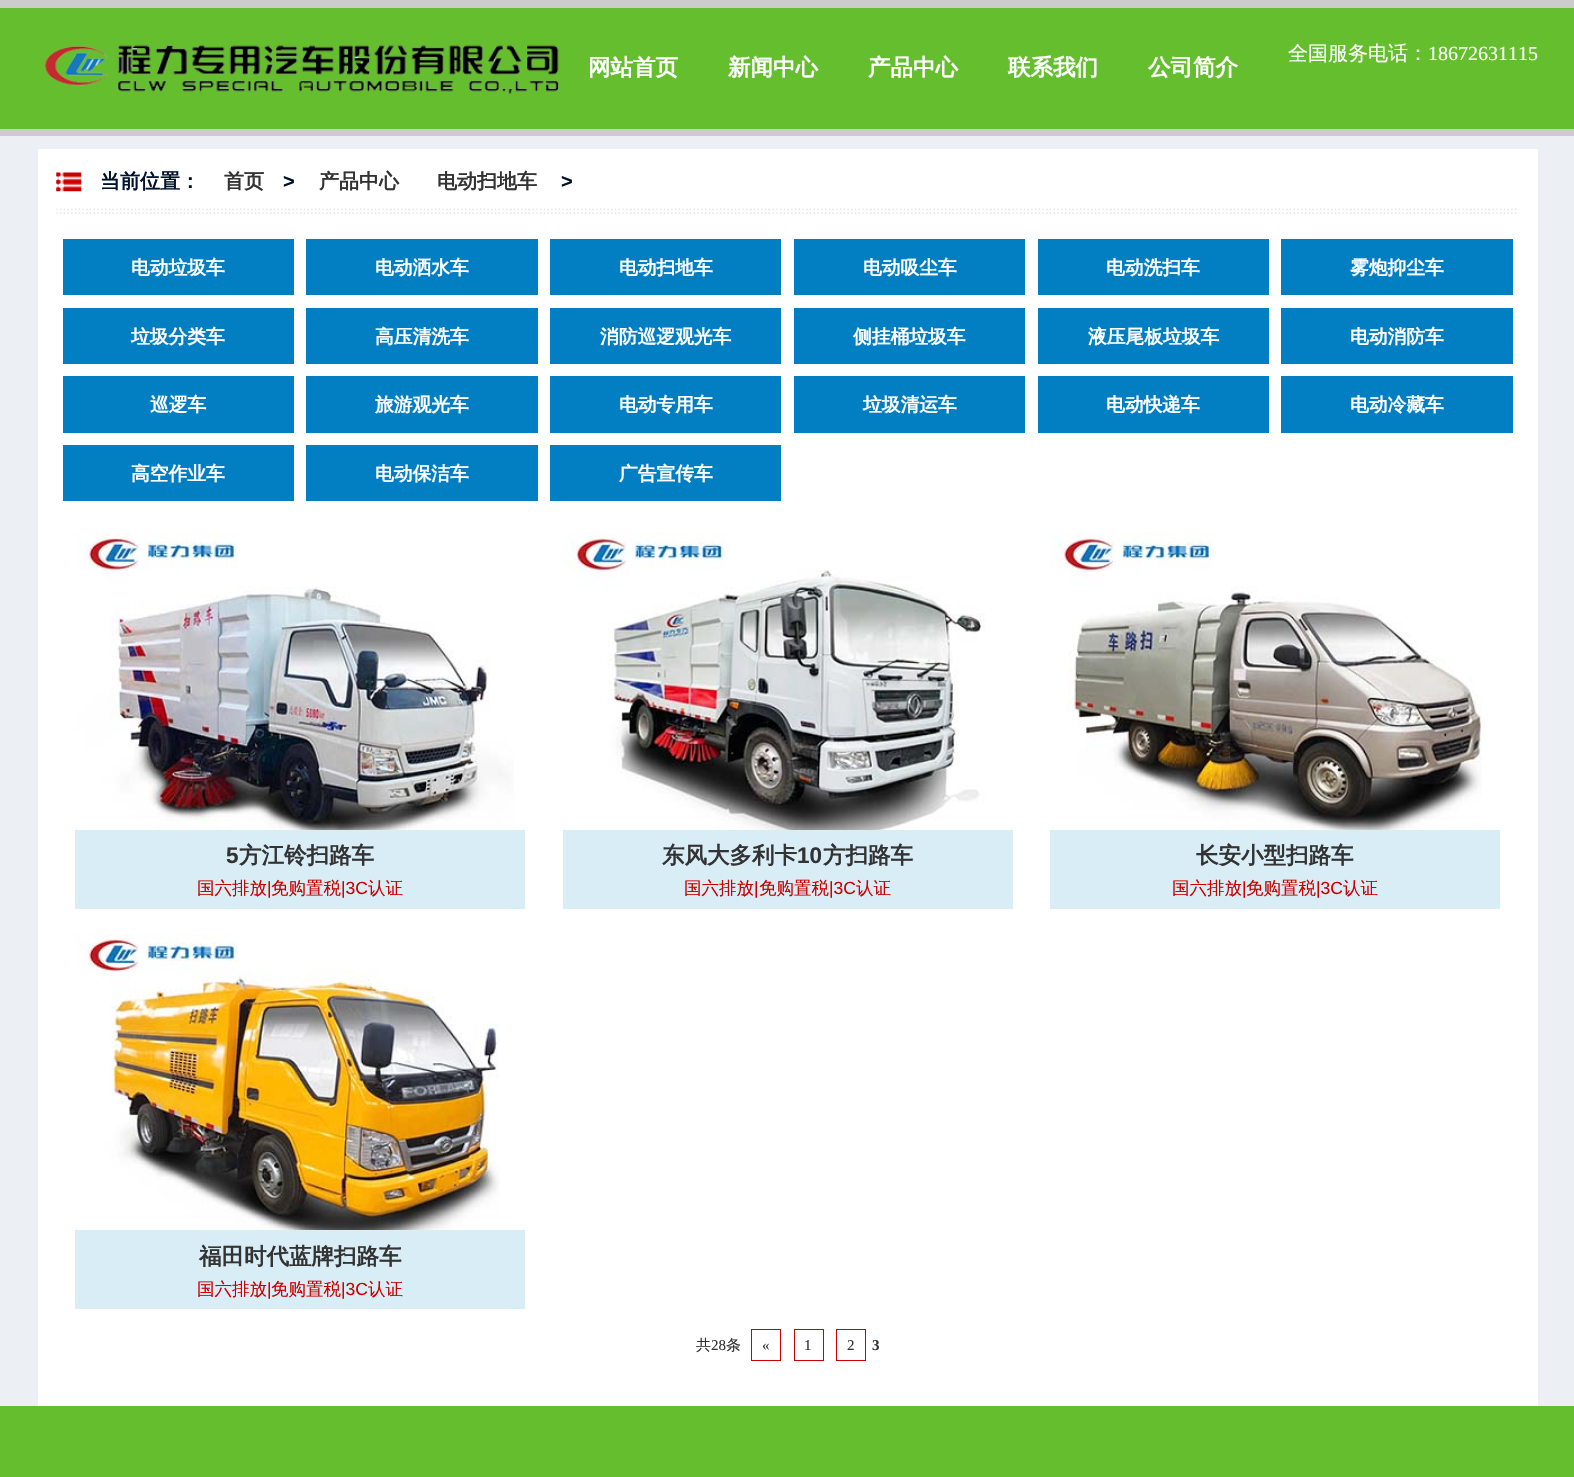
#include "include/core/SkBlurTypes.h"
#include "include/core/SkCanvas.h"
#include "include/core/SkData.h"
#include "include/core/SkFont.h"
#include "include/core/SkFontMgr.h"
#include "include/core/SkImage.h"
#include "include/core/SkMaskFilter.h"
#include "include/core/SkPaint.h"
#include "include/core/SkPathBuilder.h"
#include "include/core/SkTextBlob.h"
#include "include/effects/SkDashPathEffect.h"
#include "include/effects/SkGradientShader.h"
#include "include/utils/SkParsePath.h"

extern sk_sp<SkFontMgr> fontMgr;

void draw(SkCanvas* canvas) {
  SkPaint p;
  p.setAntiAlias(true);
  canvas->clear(SkColorSetRGB(101, 190, 46));
  p.setColor(SkColorSetRGB(204, 204, 204));
  canvas->drawRect(SkRect::MakeLTRB(0, 0, 1574, 8), p);
  canvas->drawRect(SkRect::MakeLTRB(0, 129, 1574, 136), p);
  canvas->drawImageRect(SkImages::DeferredFromEncodedData(SkData::MakeFromFileName("images/1.png")), SkRect::MakeLTRB(38, 44, 560, 95), SkSamplingOptions());
  p.setColor(SkColorSetRGB(236, 240, 245));
  canvas->drawRect(SkRect::MakeLTRB(0, 136, 1574, 1406), p);
  p.setColor(SK_ColorWHITE);
  canvas->drawRect(SkRect::MakeLTRB(38, 149, 1538, 1406), p);
  canvas->drawImageRect(SkImages::DeferredFromEncodedData(SkData::MakeFromFileName("images/2.png")), SkRect::MakeLTRB(56, 208, 1519, 214), SkSamplingOptions());
  canvas->drawImageRect(SkImages::DeferredFromEncodedData(SkData::MakeFromFileName("images/3.png")), SkRect::MakeLTRB(56, 172, 82, 192), SkSamplingOptions());
  p.setColor(SkColorSetRGB(2, 126, 195));
  canvas->drawRect(SkRect::MakeLTRB(63, 239, 294, 295), p);
  canvas->drawRect(SkRect::MakeLTRB(306, 239, 538, 295), p);
  canvas->drawRect(SkRect::MakeLTRB(550, 239, 781, 295), p);
  canvas->drawRect(SkRect::MakeLTRB(794, 239, 1025, 295), p);
  canvas->drawRect(SkRect::MakeLTRB(1038, 239, 1269, 295), p);
  canvas->drawRect(SkRect::MakeLTRB(1281, 239, 1513, 295), p);
  canvas->drawRect(SkRect::MakeLTRB(63, 308, 294, 364), p);
  canvas->drawRect(SkRect::MakeLTRB(306, 308, 538, 364), p);
  canvas->drawRect(SkRect::MakeLTRB(550, 308, 781, 364), p);
  canvas->drawRect(SkRect::MakeLTRB(794, 308, 1025, 364), p);
  canvas->drawRect(SkRect::MakeLTRB(1038, 308, 1269, 364), p);
  canvas->drawRect(SkRect::MakeLTRB(1281, 308, 1513, 364), p);
  canvas->drawRect(SkRect::MakeLTRB(63, 376, 294, 433), p);
  canvas->drawRect(SkRect::MakeLTRB(306, 376, 538, 433), p);
  canvas->drawRect(SkRect::MakeLTRB(550, 376, 781, 433), p);
  canvas->drawRect(SkRect::MakeLTRB(794, 376, 1025, 433), p);
  canvas->drawRect(SkRect::MakeLTRB(1038, 376, 1269, 433), p);
  canvas->drawRect(SkRect::MakeLTRB(1281, 376, 1513, 433), p);
  canvas->drawRect(SkRect::MakeLTRB(63, 445, 294, 501), p);
  canvas->drawRect(SkRect::MakeLTRB(306, 445, 538, 501), p);
  canvas->drawRect(SkRect::MakeLTRB(550, 445, 781, 501), p);
  canvas->drawImageRect(SkImages::DeferredFromEncodedData(SkData::MakeFromFileName("images/4.png")), SkRect::MakeLTRB(75, 533, 514, 830), SkSamplingOptions());
  p.setColor(SkColorSetRGB(217, 237, 247));
  canvas->drawRect(SkRect::MakeLTRB(75, 830, 525, 909), p);
  canvas->drawImageRect(SkImages::DeferredFromEncodedData(SkData::MakeFromFileName("images/5.png")), SkRect::MakeLTRB(563, 532, 985, 830), SkSamplingOptions());
  canvas->drawRect(SkRect::MakeLTRB(563, 830, 1013, 909), p);
  canvas->drawImageRect(SkImages::DeferredFromEncodedData(SkData::MakeFromFileName("images/6.png")), SkRect::MakeLTRB(1050, 532, 1482, 830), SkSamplingOptions());
  canvas->drawRect(SkRect::MakeLTRB(1050, 830, 1500, 909), p);
  canvas->drawImageRect(SkImages::DeferredFromEncodedData(SkData::MakeFromFileName("images/7.png")), SkRect::MakeLTRB(75, 934, 500, 1230), SkSamplingOptions());
  canvas->drawRect(SkRect::MakeLTRB(75, 1230, 525, 1309), p);
  p.setStyle(SkPaint::kStroke_Style);
  p.setStrokeWidth(1);
  p.setColor(SkColorSetRGB(202, 0, 0));
  canvas->drawRect(SkRect::MakeLTRB(751.5f, 1329.5f, 780.5f, 1360.5f), p);
  canvas->drawRect(SkRect::MakeLTRB(794.5f, 1329.5f, 823.5f, 1360.5f), p);
  canvas->drawRect(SkRect::MakeLTRB(836.5f, 1329.5f, 865.5f, 1360.5f), p);
  SkFont font1(fontMgr->matchFamilyStyle("WenQuanYi Zen Hei", SkFontStyle::Bold()), 22.5f);
  font1.setSubpixel(true);
  p.setStyle(SkPaint::kFill_Style);
  p.setColor(SK_ColorWHITE);
  canvas->drawString("网站首页", 588, 75, font1, p);
  canvas->drawString("新闻中心", 728, 75, font1, p);
  canvas->drawString("产品中心", 868, 75, font1, p);
  canvas->drawString("联系我们", 1008, 75, font1, p);
  canvas->drawString("公司简介", 1148, 75, font1, p);
  SkFont font2(fontMgr->matchFamilyStyle("WenQuanYi Zen Hei", SkFontStyle(500, SkFontStyle::kNormal_Width, SkFontStyle::kUpright_Slant)), 20);
  font2.setSubpixel(true);
  canvas->drawString("全国服务电话：", 1288, 60, font2, p);
  SkFont font3(fontMgr->matchFamilyStyle("Liberation Serif", SkFontStyle::Normal()), 20);
  font3.setSubpixel(true);
  canvas->drawString("18672631115", 1428, 60, font3, p);
  SkFont font4(fontMgr->matchFamilyStyle("WenQuanYi Zen Hei", SkFontStyle::Bold()), 20);
  font4.setSubpixel(true);
  p.setColor(SkColorSetRGB(0, 19, 43));
  canvas->drawString("当前位置：", 100, 188, font4, p);
  p.setColor(SkColorSetRGB(51, 51, 51));
  canvas->drawString("首页", 224, 188, font4, p);
  SkFont font5(fontMgr->matchFamilyStyle("Liberation Sans", SkFontStyle::Bold()), 20);
  font5.setSubpixel(true);
  p.setColor(SkColorSetRGB(0, 19, 43));
  canvas->drawString(">", 283, 188, font5, p);
  p.setColor(SkColorSetRGB(51, 51, 51));
  canvas->drawString("产品中心", 319, 188, font4, p);
  canvas->drawString("电动扫地车", 437, 188, font4, p);
  p.setColor(SkColorSetRGB(0, 19, 43));
  canvas->drawString(">", 561, 188, font5, p);
  SkFont font6(fontMgr->matchFamilyStyle("WenQuanYi Zen Hei", SkFontStyle::Bold()), 18.75f);
  font6.setSubpixel(true);
  p.setColor(SK_ColorWHITE);
  canvas->drawString("电动垃圾车", 131, 274, font6, p);
  canvas->drawString("电动洒水车", 375, 274, font6, p);
  canvas->drawString("电动扫地车", 619, 274, font6, p);
  canvas->drawString("电动吸尘车", 863, 274, font6, p);
  canvas->drawString("电动洗扫车", 1106, 274, font6, p);
  canvas->drawString("雾炮抑尘车", 1350, 274, font6, p);
  canvas->drawString("垃圾分类车", 131, 343, font6, p);
  canvas->drawString("高压清洗车", 375, 343, font6, p);
  canvas->drawString("消防巡逻观光车", 600, 343, font6, p);
  canvas->drawString("侧挂桶垃圾车", 853, 343, font6, p);
  canvas->drawString("液压尾板垃圾车", 1088, 343, font6, p);
  canvas->drawString("电动消防车", 1350, 343, font6, p);
  canvas->drawString("巡逻车", 150, 411, font6, p);
  canvas->drawString("旅游观光车", 375, 411, font6, p);
  canvas->drawString("电动专用车", 619, 411, font6, p);
  canvas->drawString("垃圾清运车", 863, 411, font6, p);
  canvas->drawString("电动快递车", 1106, 411, font6, p);
  canvas->drawString("电动冷藏车", 1350, 411, font6, p);
  canvas->drawString("高空作业车", 131, 480, font6, p);
  canvas->drawString("电动保洁车", 375, 480, font6, p);
  canvas->drawString("广告宣传车", 619, 480, font6, p);
  SkFont font7(fontMgr->matchFamilyStyle("Liberation Sans", SkFontStyle::Bold()), 22.5f);
  font7.setSubpixel(true);
  p.setColor(SkColorSetRGB(51, 51, 51));
  canvas->drawString("5", 226, 863, font7, p);
  canvas->drawString("方江铃扫路车", 239, 863, font1, p);
  SkFont font8(fontMgr->matchFamilyStyle("WenQuanYi Zen Hei", SkFontStyle(500, SkFontStyle::kNormal_Width, SkFontStyle::kUpright_Slant)), 17.5f);
  font8.setSubpixel(true);
  p.setColor(SkColorSetRGB(202, 0, 0));
  canvas->drawString("国六排放", 197, 894, font8, p);
  SkFont font9(fontMgr->matchFamilyStyle("Liberation Sans", SkFontStyle::Normal()), 17.5f);
  font9.setSubpixel(true);
  canvas->drawString("|", 267, 894, font9, p);
  canvas->drawString("免购置税", 271, 894, font8, p);
  canvas->drawString("|3C", 341, 894, font9, p);
  canvas->drawString("认证", 368, 894, font8, p);
  p.setColor(SkColorSetRGB(51, 51, 51));
  canvas->drawString("东风大多利卡", 662, 863, font1, p);
  canvas->drawString("10", 797, 863, font7, p);
  canvas->drawString("方扫路车", 823, 863, font1, p);
  p.setColor(SkColorSetRGB(202, 0, 0));
  canvas->drawString("国六排放", 684, 894, font8, p);
  canvas->drawString("|", 754, 894, font9, p);
  canvas->drawString("免购置税", 759, 894, font8, p);
  canvas->drawString("|3C", 829, 894, font9, p);
  canvas->drawString("认证", 856, 894, font8, p);
  p.setColor(SkColorSetRGB(51, 51, 51));
  canvas->drawString("长安小型扫路车", 1196, 863, font1, p);
  p.setColor(SkColorSetRGB(202, 0, 0));
  canvas->drawString("国六排放", 1172, 894, font8, p);
  canvas->drawString("|", 1242, 894, font9, p);
  canvas->drawString("免购置税", 1246, 894, font8, p);
  canvas->drawString("|3C", 1316, 894, font9, p);
  canvas->drawString("认证", 1343, 894, font8, p);
  p.setColor(SkColorSetRGB(51, 51, 51));
  canvas->drawString("福田时代蓝牌扫路车", 199, 1264, font1, p);
  p.setColor(SkColorSetRGB(202, 0, 0));
  canvas->drawString("国六排放", 197, 1295, font8, p);
  canvas->drawString("|", 267, 1295, font9, p);
  canvas->drawString("免购置税", 271, 1295, font8, p);
  canvas->drawString("|3C", 341, 1295, font9, p);
  canvas->drawString("认证", 368, 1295, font8, p);
  SkFont font10(fontMgr->matchFamilyStyle("WenQuanYi Zen Hei", SkFontStyle(500, SkFontStyle::kNormal_Width, SkFontStyle::kUpright_Slant)), 15);
  font10.setSubpixel(true);
  p.setColor(SkColorSetRGB(51, 51, 51));
  canvas->drawString("共", 696, 1350, font10, p);
  SkFont font11(fontMgr->matchFamilyStyle("Liberation Serif", SkFontStyle::Normal()), 15);
  font11.setSubpixel(true);
  canvas->drawString("28", 711, 1350, font11, p);
  canvas->drawString("条", 726, 1350, font10, p);
  canvas->drawString("«", 762, 1350, font11, p);
  canvas->drawString("1", 804, 1350, font11, p);
  canvas->drawString("2", 847, 1350, font11, p);
  SkFont font12(fontMgr->matchFamilyStyle("Liberation Serif", SkFontStyle::Bold()), 15);
  font12.setSubpixel(true);
  canvas->drawString("3", 872, 1350, font12, p);
}
